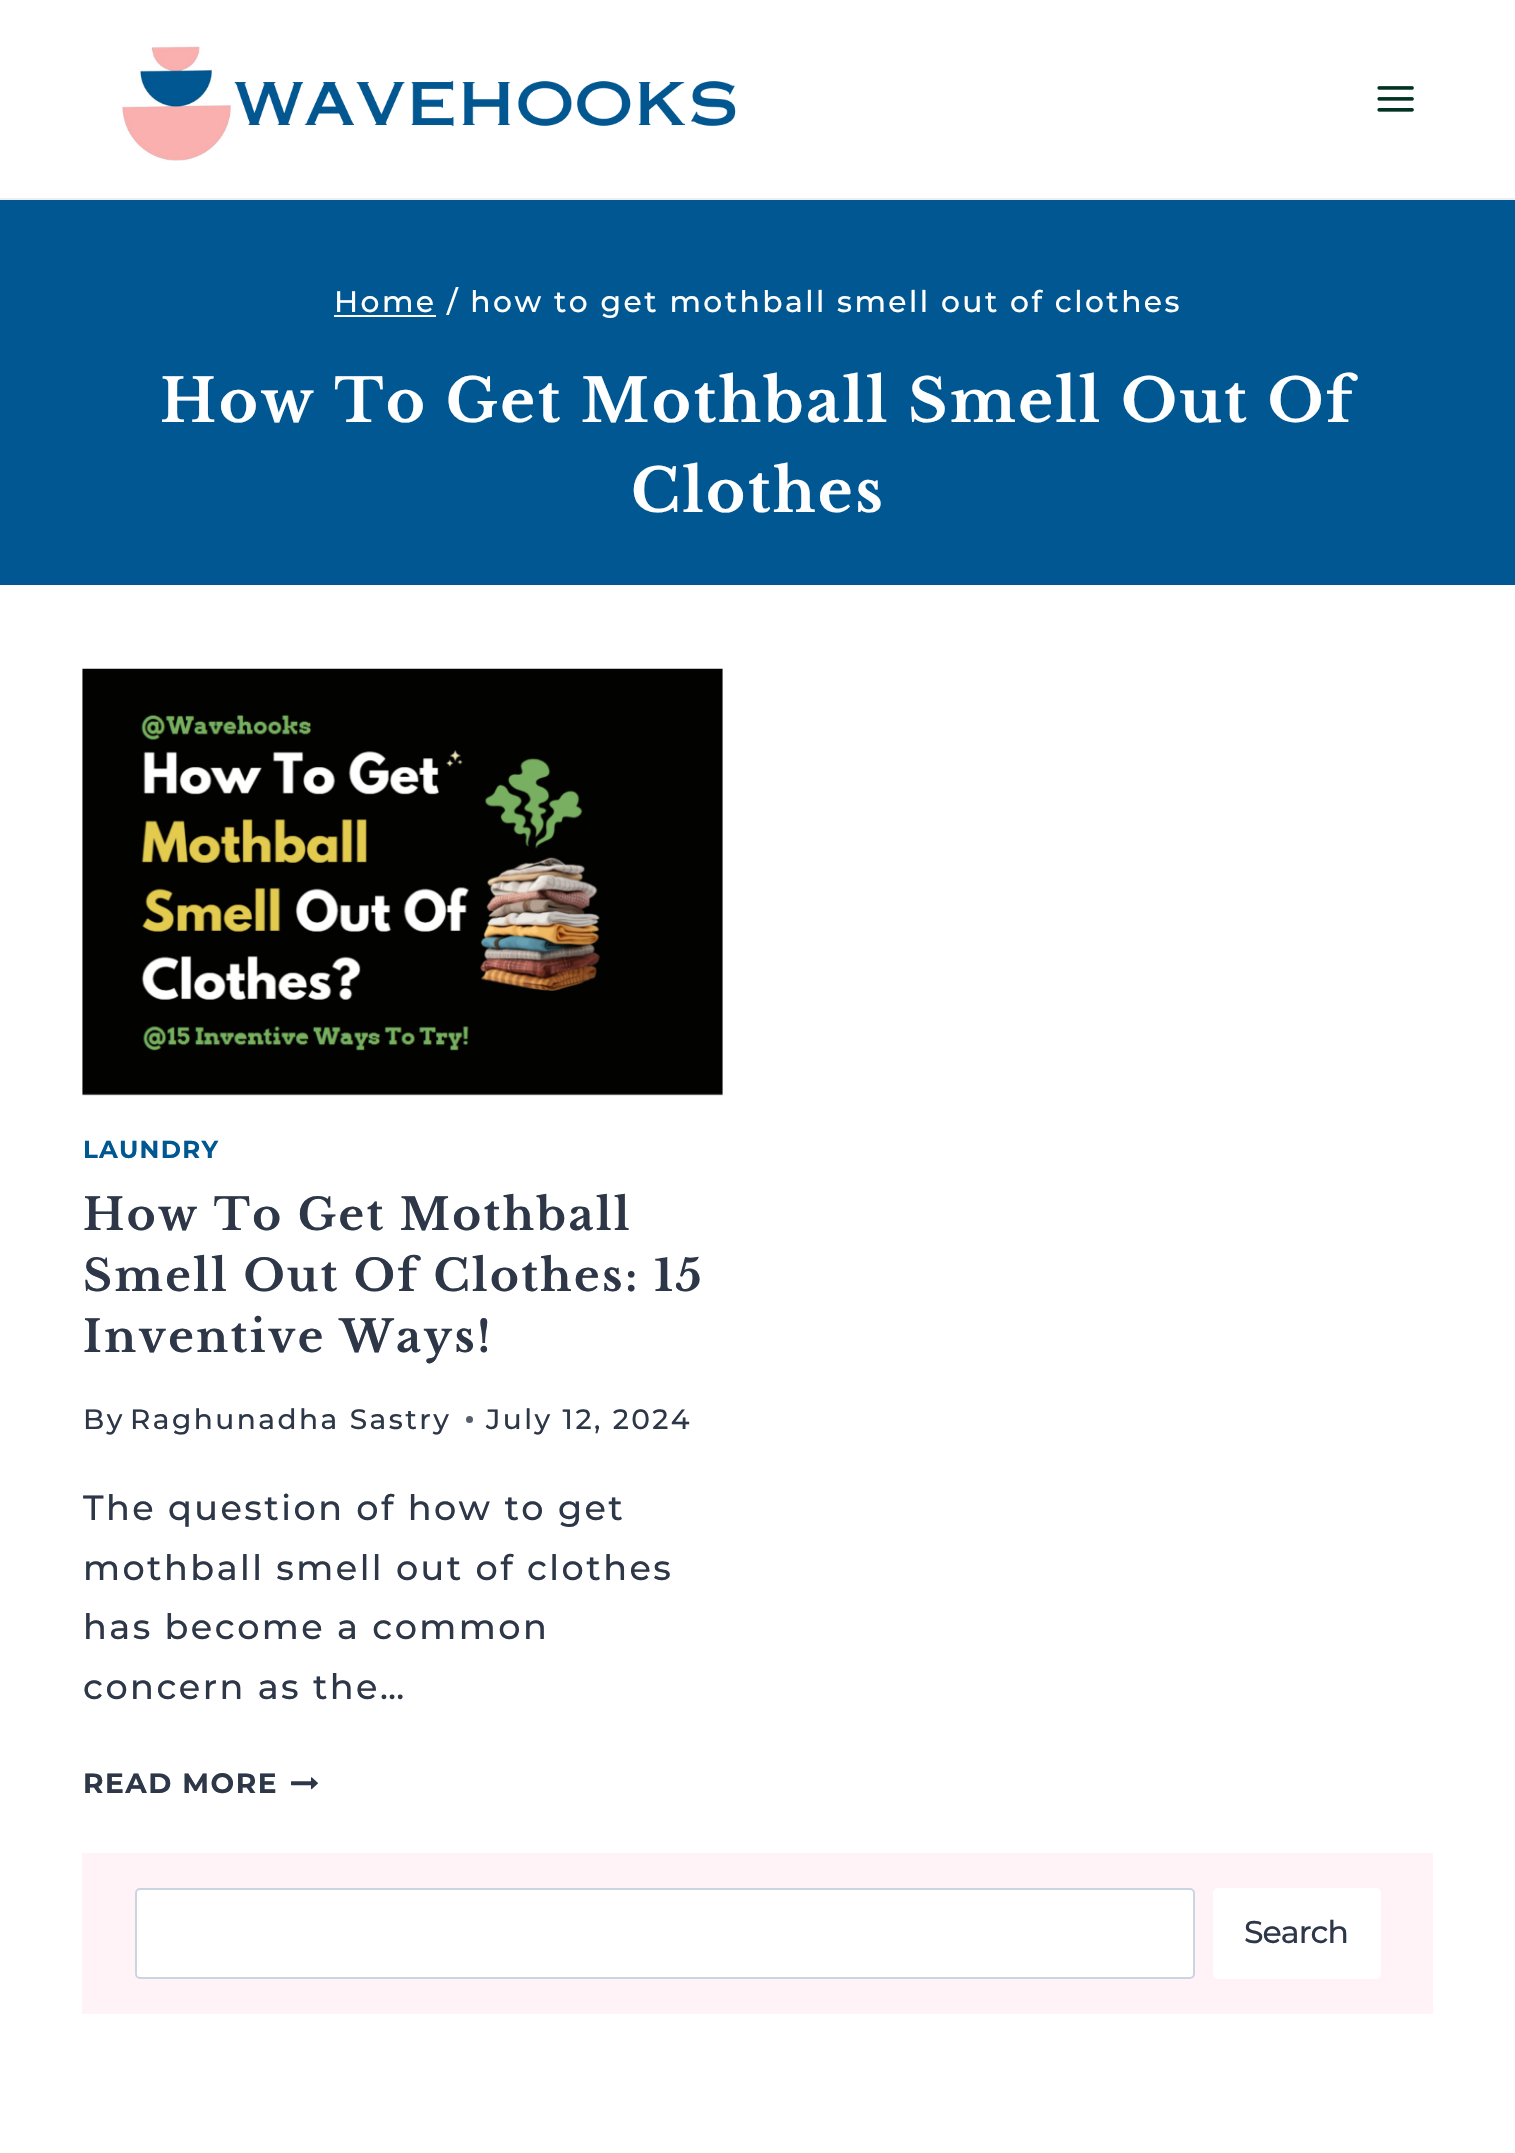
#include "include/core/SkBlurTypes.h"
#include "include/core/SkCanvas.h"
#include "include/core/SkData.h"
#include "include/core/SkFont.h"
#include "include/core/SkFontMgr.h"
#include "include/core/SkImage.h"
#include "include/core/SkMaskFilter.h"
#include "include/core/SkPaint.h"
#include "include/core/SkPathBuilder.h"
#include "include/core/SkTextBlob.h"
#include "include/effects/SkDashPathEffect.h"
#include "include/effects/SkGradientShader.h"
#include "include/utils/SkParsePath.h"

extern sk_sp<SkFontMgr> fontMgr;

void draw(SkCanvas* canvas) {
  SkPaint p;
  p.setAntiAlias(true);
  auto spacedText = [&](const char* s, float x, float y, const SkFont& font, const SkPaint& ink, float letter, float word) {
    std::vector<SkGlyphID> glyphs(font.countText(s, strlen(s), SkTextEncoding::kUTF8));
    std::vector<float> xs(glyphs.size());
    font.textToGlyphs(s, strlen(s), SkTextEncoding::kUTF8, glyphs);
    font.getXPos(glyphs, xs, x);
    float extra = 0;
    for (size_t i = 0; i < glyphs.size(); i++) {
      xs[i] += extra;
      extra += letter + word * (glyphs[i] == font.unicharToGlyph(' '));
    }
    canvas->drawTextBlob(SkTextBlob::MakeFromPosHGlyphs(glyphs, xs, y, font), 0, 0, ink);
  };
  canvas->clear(SK_ColorWHITE);
  p.setColor(SkColorSetRGB(238, 238, 238));
  canvas->drawRect(SkRect::MakeLTRB(0, 198, 1515, 200), p);
  canvas->drawImageRect(SkImages::DeferredFromEncodedData(SkData::MakeFromFileName("images/1.png")), SkRect::MakeLTRB(122, 46, 736, 161), SkSamplingOptions());
  canvas->drawImageRect(SkImages::DeferredFromEncodedData(SkData::MakeFromFileName("images/2.png")), SkRect::MakeLTRB(1377, 86, 1414, 112), SkSamplingOptions());
  p.setColor(SkColorSetRGB(0, 87, 146));
  canvas->drawRect(SkRect::MakeLTRB(0, 200, 1515, 585), p);
  p.setColor(SK_ColorWHITE);
  canvas->drawRect(SkRect::MakeLTRB(334, 315, 436, 317), p);
  canvas->drawImageRect(SkImages::DeferredFromEncodedData(SkData::MakeFromFileName("images/3.png")), SkRect::MakeLTRB(82, 668, 723, 1096), SkSamplingOptions());
  p.setColor(SkColorSetRGB(87, 95, 109));
  canvas->drawCircle(469.5f, 1419.5f, 3.5f, p);
  canvas->drawImageRect(SkImages::DeferredFromEncodedData(SkData::MakeFromFileName("images/4.png")), SkRect::MakeLTRB(291, 1777, 318, 1790), SkSamplingOptions());
  p.setColor(SkColorSetRGB(255, 243, 248));
  canvas->drawRect(SkRect::MakeLTRB(82, 1853, 1433, 2014), p);
  p.setColor(SK_ColorWHITE);
  canvas->drawRoundRect(SkRect::MakeLTRB(136, 1889, 1194, 1978), 4, 4, p);
  p.setStyle(SkPaint::kStroke_Style);
  p.setStrokeWidth(2);
  p.setColor(SkColorSetRGB(203, 213, 224));
  canvas->drawRoundRect(SkRect::MakeLTRB(136, 1889, 1194, 1978), 4, 4, p);
  p.setStyle(SkPaint::kFill_Style);
  p.setColor(SK_ColorWHITE);
  canvas->drawRoundRect(SkRect::MakeLTRB(1213, 1888, 1381, 1979), 5, 5, p);
  SkFont font1(fontMgr->matchFamilyStyle("Montserrat", SkFontStyle(500, SkFontStyle::kNormal_Width, SkFontStyle::kUpright_Slant)), 29.75f);
  font1.setSubpixel(true);
  spacedText("Home / how to get mothball smell out of clothes", 334, 312, font1, p, 2.45f, 0);
  SkFont font2(fontMgr->matchFamilyStyle("Libre Baskerville", SkFontStyle::Bold()), 59.5f);
  font2.setSubpixel(true);
  spacedText("How To Get Mothball Smell Out Of", 160, 422, font2, p, 2.45f, 0);
  spacedText("Clothes", 631, 512, font2, p, 2.45f, 0);
  SkFont font3(fontMgr->matchFamilyStyle("Montserrat", SkFontStyle::Bold()), 24.5f);
  font3.setSubpixel(true);
  p.setColor(SkColorSetRGB(0, 87, 146));
  spacedText("LAUNDRY", 83, 1158, font3, p, 1.25f, 0);
  SkFont font4(fontMgr->matchFamilyStyle("Libre Baskerville", SkFontStyle::Bold()), 43.75f);
  font4.setSubpixel(true);
  p.setColor(SkColorSetRGB(45, 55, 72));
  spacedText("How To Get Mothball", 83, 1230, font4, p, 2.45f, 0);
  spacedText("Smell Out Of Clothes: 15", 83, 1291, font4, p, 2.45f, 0);
  spacedText("Inventive Ways!", 83, 1352, font4, p, 2.45f, 0);
  SkFont font5(fontMgr->matchFamilyStyle("Montserrat", SkFontStyle(500, SkFontStyle::kNormal_Width, SkFontStyle::kUpright_Slant)), 28);
  font5.setSubpixel(true);
  spacedText("By", 83, 1429, font5, p, 2.45f, 0);
  spacedText("Raghunadha Sastry", 130, 1429, font5, p, 2.45f, 0);
  spacedText("July 12, 2024", 486, 1429, font5, p, 2.45f, 0);
  SkFont font6(fontMgr->matchFamilyStyle("Montserrat", SkFontStyle(500, SkFontStyle::kNormal_Width, SkFontStyle::kUpright_Slant)), 35);
  font6.setSubpixel(true);
  spacedText("The question of how to get", 83, 1520, font6, p, 2.45f, 0);
  spacedText("mothball smell out of clothes", 83, 1580, font6, p, 2.45f, 0);
  spacedText("has become a common", 83, 1639, font6, p, 2.45f, 0);
  spacedText("concern as the…", 83, 1699, font6, p, 2.45f, 0);
  SkFont font7(fontMgr->matchFamilyStyle("Montserrat", SkFontStyle::Bold()), 28);
  font7.setSubpixel(true);
  spacedText("READ MORE", 83, 1793, font7, p, 1.5f, 0);
  SkFont font8(fontMgr->matchFamilyStyle("Montserrat", SkFontStyle(500, SkFontStyle::kNormal_Width, SkFontStyle::kUpright_Slant)), 31.5f);
  font8.setSubpixel(true);
  spacedText("Search", 1244, 1943, font8, p, -1, 0);
}
